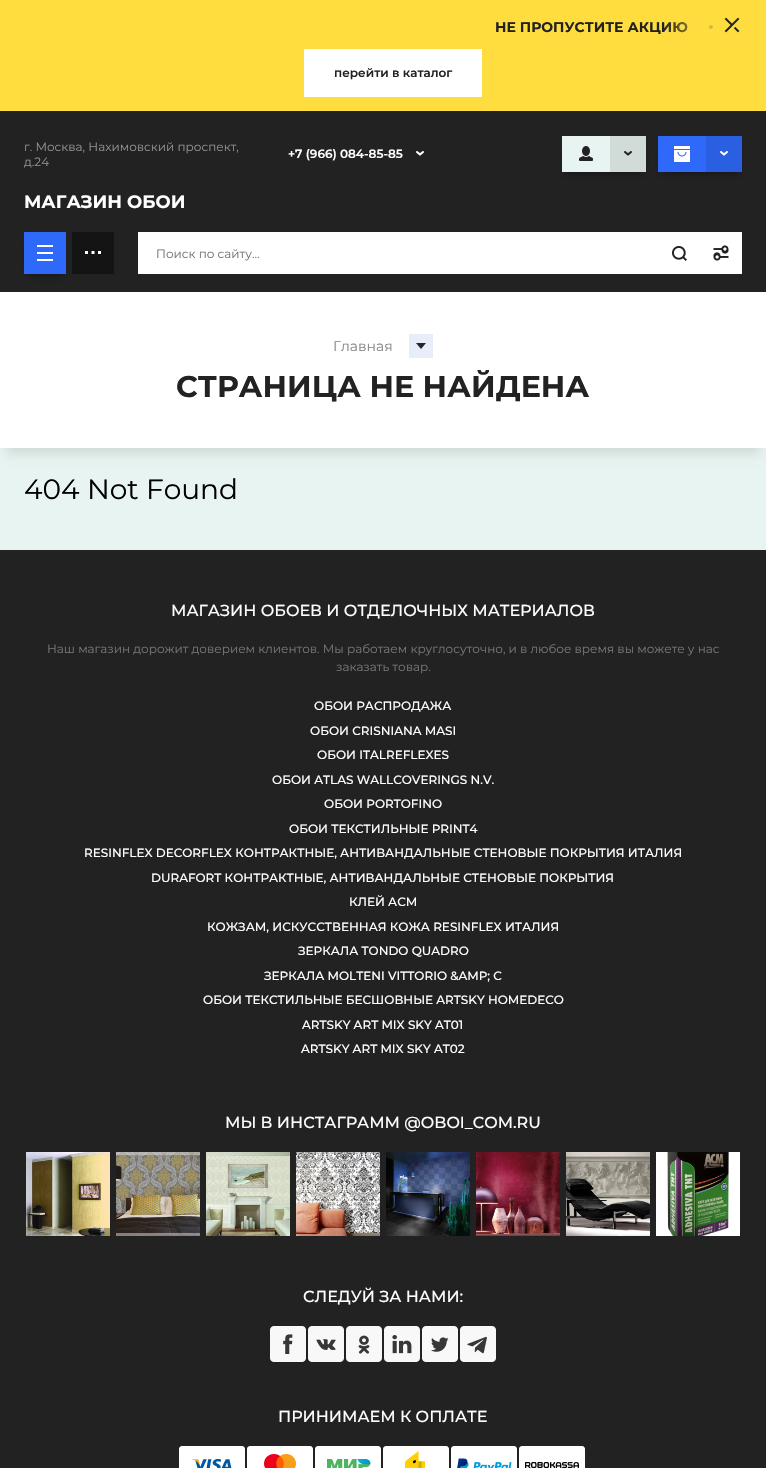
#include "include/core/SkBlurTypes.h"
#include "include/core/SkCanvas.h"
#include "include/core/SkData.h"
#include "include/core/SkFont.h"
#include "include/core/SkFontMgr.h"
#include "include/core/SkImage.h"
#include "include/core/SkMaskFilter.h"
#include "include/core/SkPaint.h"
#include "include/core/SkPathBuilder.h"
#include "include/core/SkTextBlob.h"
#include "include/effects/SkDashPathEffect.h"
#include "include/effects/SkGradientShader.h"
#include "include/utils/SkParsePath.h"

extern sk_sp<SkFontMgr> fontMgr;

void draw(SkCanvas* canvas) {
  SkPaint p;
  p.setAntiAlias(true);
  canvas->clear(SkColorSetRGB(255, 221, 63));
  p.setColor(SkColorSetRGB(34, 34, 34));
  canvas->drawRect(SkRect::MakeLTRB(0, 111, 766, 292), p);
  canvas->drawCircle(711, 27, 2, p);
  canvas->drawImageRect(SkImages::DeferredFromEncodedData(SkData::MakeFromFileName("images/1.png")), SkRect::MakeLTRB(724, 17, 740, 33), SkSamplingOptions());
  p.setColor(SK_ColorWHITE);
  canvas->drawRect(SkRect::MakeLTRB(304, 49, 482, 97), p);
  canvas->drawImageRect(SkImages::DeferredFromEncodedData(SkData::MakeFromFileName("images/2.png")), SkRect::MakeLTRB(416, 151, 424, 156), SkSamplingOptions());
  p.setColor(SkColorSetARGB(89, 0, 0, 0));
  p.setMaskFilter(SkMaskFilter::MakeBlur(kNormal_SkBlurStyle, 4));
  canvas->drawRect(SkRect::MakeLTRB(566, 146, 642, 174), p);
  p.setMaskFilter(nullptr);
  p.setColor(SkColorSetRGB(232, 244, 241));
  canvas->drawRect(SkRect::MakeLTRB(562, 136, 610, 172), p);
  canvas->drawImageRect(SkImages::DeferredFromEncodedData(SkData::MakeFromFileName("images/3.png")), SkRect::MakeLTRB(579, 146, 593, 161), SkSamplingOptions());
  p.setColor(SkColorSetRGB(209, 220, 217));
  canvas->drawRect(SkRect::MakeLTRB(610, 136, 646, 172), p);
  canvas->drawImageRect(SkImages::DeferredFromEncodedData(SkData::MakeFromFileName("images/4.png")), SkRect::MakeLTRB(624, 151, 632, 156), SkSamplingOptions());
  p.setColor(SkColorSetARGB(89, 0, 0, 0));
  p.setMaskFilter(SkMaskFilter::MakeBlur(kNormal_SkBlurStyle, 4));
  canvas->drawRect(SkRect::MakeLTRB(662, 146, 738, 174), p);
  p.setMaskFilter(nullptr);
  p.setColor(SkColorSetRGB(46, 105, 249));
  canvas->drawRect(SkRect::MakeLTRB(658, 136, 706, 172), p);
  canvas->drawImageRect(SkImages::DeferredFromEncodedData(SkData::MakeFromFileName("images/5.png")), SkRect::MakeLTRB(674, 146, 690, 162), SkSamplingOptions());
  p.setColor(SkColorSetRGB(41, 95, 224));
  canvas->drawRect(SkRect::MakeLTRB(706, 136, 742, 172), p);
  canvas->drawImageRect(SkImages::DeferredFromEncodedData(SkData::MakeFromFileName("images/6.png")), SkRect::MakeLTRB(720, 151, 728, 156), SkSamplingOptions());
  p.setColor(SkColorSetARGB(89, 0, 0, 0));
  p.setMaskFilter(SkMaskFilter::MakeBlur(kNormal_SkBlurStyle, 4));
  canvas->drawRect(SkRect::MakeLTRB(28, 242, 62, 276), p);
  p.setMaskFilter(nullptr);
  p.setColor(SkColorSetRGB(46, 105, 249));
  canvas->drawRect(SkRect::MakeLTRB(24, 232, 66, 274), p);
  canvas->drawImageRect(SkImages::DeferredFromEncodedData(SkData::MakeFromFileName("images/7.png")), SkRect::MakeLTRB(37, 245, 53, 261), SkSamplingOptions());
  p.setColor(SkColorSetRGB(20, 20, 20));
  canvas->drawRect(SkRect::MakeLTRB(72, 232, 114, 274), p);
  canvas->drawImageRect(SkImages::DeferredFromEncodedData(SkData::MakeFromFileName("images/8.png")), SkRect::MakeLTRB(85, 251, 101, 254), SkSamplingOptions());
  p.setColor(SK_ColorWHITE);
  canvas->drawRect(SkRect::MakeLTRB(138, 232, 742, 274), p);
  canvas->drawImageRect(SkImages::DeferredFromEncodedData(SkData::MakeFromFileName("images/9.png")), SkRect::MakeLTRB(672, 246, 687, 261), SkSamplingOptions());
  canvas->drawImageRect(SkImages::DeferredFromEncodedData(SkData::MakeFromFileName("images/10.png")), SkRect::MakeLTRB(713, 245, 729, 261), SkSamplingOptions());
  p.setColor(SkColorSetRGB(232, 244, 241));
  canvas->drawRect(SkRect::MakeLTRB(0, 448, 766, 550), p);
  p.setColor(SkColorSetARGB(26, 0, 0, 0));
  p.setMaskFilter(SkMaskFilter::MakeBlur(kNormal_SkBlurStyle, 5));
  canvas->drawRect(SkRect::MakeLTRB(6, 310, 760, 454), p);
  p.setMaskFilter(nullptr);
  p.setColor(SK_ColorWHITE);
  canvas->drawRect(SkRect::MakeLTRB(0, 292, 766, 448), p);
  p.setColor(SkColorSetRGB(232, 238, 249));
  canvas->drawRect(SkRect::MakeLTRB(409, 334, 433, 358), p);
  p.setColor(SkColorSetRGB(37, 37, 37));
  canvas->drawPath(SkPathBuilder().moveTo(416, 343).lineTo(426, 343).lineTo(421, 349).close().detach(), p);
  p.setColor(SkColorSetRGB(34, 34, 34));
  canvas->drawRect(SkRect::MakeLTRB(0, 550, 766, 1468), p);
  canvas->drawImageRect(SkImages::DeferredFromEncodedData(SkData::MakeFromFileName("images/11.png")), SkRect::MakeLTRB(26, 1152, 110, 1236), SkSamplingOptions());
  canvas->drawImageRect(SkImages::DeferredFromEncodedData(SkData::MakeFromFileName("images/12.png")), SkRect::MakeLTRB(116, 1152, 200, 1236), SkSamplingOptions());
  canvas->drawImageRect(SkImages::DeferredFromEncodedData(SkData::MakeFromFileName("images/13.png")), SkRect::MakeLTRB(206, 1152, 290, 1236), SkSamplingOptions());
  canvas->drawImageRect(SkImages::DeferredFromEncodedData(SkData::MakeFromFileName("images/14.png")), SkRect::MakeLTRB(296, 1152, 380, 1236), SkSamplingOptions());
  canvas->drawImageRect(SkImages::DeferredFromEncodedData(SkData::MakeFromFileName("images/15.png")), SkRect::MakeLTRB(386, 1152, 470, 1236), SkSamplingOptions());
  canvas->drawImageRect(SkImages::DeferredFromEncodedData(SkData::MakeFromFileName("images/16.png")), SkRect::MakeLTRB(476, 1152, 560, 1236), SkSamplingOptions());
  canvas->drawImageRect(SkImages::DeferredFromEncodedData(SkData::MakeFromFileName("images/17.png")), SkRect::MakeLTRB(566, 1152, 650, 1236), SkSamplingOptions());
  canvas->drawImageRect(SkImages::DeferredFromEncodedData(SkData::MakeFromFileName("images/18.png")), SkRect::MakeLTRB(656, 1152, 740, 1236), SkSamplingOptions());
  canvas->drawImageRect(SkImages::DeferredFromEncodedData(SkData::MakeFromFileName("images/19.png")), SkRect::MakeLTRB(270, 1326, 306, 1362), SkSamplingOptions());
  canvas->drawImageRect(SkImages::DeferredFromEncodedData(SkData::MakeFromFileName("images/20.png")), SkRect::MakeLTRB(308, 1326, 344, 1362), SkSamplingOptions());
  canvas->drawImageRect(SkImages::DeferredFromEncodedData(SkData::MakeFromFileName("images/21.png")), SkRect::MakeLTRB(346, 1326, 382, 1362), SkSamplingOptions());
  canvas->drawImageRect(SkImages::DeferredFromEncodedData(SkData::MakeFromFileName("images/22.png")), SkRect::MakeLTRB(384, 1326, 420, 1362), SkSamplingOptions());
  canvas->drawImageRect(SkImages::DeferredFromEncodedData(SkData::MakeFromFileName("images/23.png")), SkRect::MakeLTRB(422, 1326, 458, 1362), SkSamplingOptions());
  canvas->drawImageRect(SkImages::DeferredFromEncodedData(SkData::MakeFromFileName("images/24.png")), SkRect::MakeLTRB(460, 1326, 496, 1362), SkSamplingOptions());
  canvas->drawImageRect(SkImages::DeferredFromEncodedData(SkData::MakeFromFileName("images/25.png")), SkRect::MakeLTRB(179, 1446, 245, 1468), SkSamplingOptions());
  canvas->drawImageRect(SkImages::DeferredFromEncodedData(SkData::MakeFromFileName("images/26.png")), SkRect::MakeLTRB(247, 1446, 313, 1468), SkSamplingOptions());
  canvas->drawImageRect(SkImages::DeferredFromEncodedData(SkData::MakeFromFileName("images/27.png")), SkRect::MakeLTRB(315, 1446, 381, 1468), SkSamplingOptions());
  canvas->drawImageRect(SkImages::DeferredFromEncodedData(SkData::MakeFromFileName("images/28.png")), SkRect::MakeLTRB(383, 1446, 449, 1468), SkSamplingOptions());
  canvas->drawImageRect(SkImages::DeferredFromEncodedData(SkData::MakeFromFileName("images/29.png")), SkRect::MakeLTRB(451, 1446, 517, 1468), SkSamplingOptions());
  canvas->drawImageRect(SkImages::DeferredFromEncodedData(SkData::MakeFromFileName("images/30.png")), SkRect::MakeLTRB(519, 1446, 585, 1468), SkSamplingOptions());
  SkFont font1(fontMgr->matchFamilyStyle("Montserrat", SkFontStyle::Bold()), 14);
  font1.setSubpixel(true);
  canvas->drawString("НЕ ПРОПУСТИТЕ АКЦИЮ", 495, 32, font1, p);
  {
    const SkColor colors[] = {SkColorSetARGB(0, 255, 221, 63), SkColorSetRGB(255, 221, 63)};
    const float stops[] = {0, 1};
    const SkPoint ends[] = {{663, 25}, {723, 24}};
    p.setShader(SkGradientShader::MakeLinear(ends, colors, stops, 2, SkTileMode::kClamp));
    p.setAlpha(255);
  }
  canvas->drawRect(SkRect::MakeLTRB(664, 22, 713, 33), p);
  SkFont font2(fontMgr->matchFamilyStyle("Montserrat", SkFontStyle(600, SkFontStyle::kNormal_Width, SkFontStyle::kUpright_Slant)), 12);
  font2.setSubpixel(true);
  p.setShader(nullptr);
  p.setColor(SkColorSetRGB(34, 34, 34));
  canvas->drawString("перейти в каталог", 334, 77, font2, p);
  SkFont font3(fontMgr->matchFamilyStyle("Montserrat", SkFontStyle::Normal()), 12);
  font3.setSubpixel(true);
  p.setColor(SkColorSetRGB(145, 145, 145));
  canvas->drawString("г. Москва, Нахимовский проспект,", 24, 151, font3, p);
  canvas->drawString("д.24", 24, 166, font3, p);
  p.setColor(SK_ColorWHITE);
  canvas->drawString("+7 (966) 084-85-85", 288, 158, font2, p);
  SkFont font4(fontMgr->matchFamilyStyle("Montserrat", SkFontStyle::Bold()), 18);
  font4.setSubpixel(true);
  canvas->drawString("МАГАЗИН ОБОИ", 24, 208, font4, p);
  p.setColor(SkColorSetRGB(117, 117, 117));
  canvas->drawString("Поиск по сайту...", 156, 258, font3, p);
  SkFont font5(fontMgr->matchFamilyStyle("Montserrat", SkFontStyle::Normal()), 14);
  font5.setSubpixel(true);
  p.setColor(SkColorSetRGB(136, 136, 136));
  canvas->drawString("Главная", 333, 351, font5, p);
  SkFont font6(fontMgr->matchFamilyStyle("Montserrat", SkFontStyle::Bold()), 30);
  font6.setSubpixel(true);
  p.setColor(SkColorSetRGB(34, 34, 34));
  canvas->drawString("СТРАНИЦА НЕ НАЙДЕНА", 176, 397, font6, p);
  SkFont font7(fontMgr->matchFamilyStyle("Montserrat", SkFontStyle::Normal()), 28);
  font7.setSubpixel(true);
  p.setColor(SK_ColorBLACK);
  canvas->drawString("404 Not Found", 24, 499, font7, p);
  SkFont font8(fontMgr->matchFamilyStyle("Montserrat", SkFontStyle(500, SkFontStyle::kNormal_Width, SkFontStyle::kUpright_Slant)), 16);
  font8.setSubpixel(true);
  p.setColor(SK_ColorWHITE);
  canvas->drawString("МАГАЗИН ОБОЕВ И ОТДЕЛОЧНЫХ МАТЕРИАЛОВ", 171, 616, font8, p);
  p.setColor(SkColorSetRGB(117, 117, 117));
  canvas->drawString("Наш магазин дорожит доверием клиентов. Мы работаем круглосуточно, и в любое время вы можете у нас", 47, 653, font3, p);
  canvas->drawString("заказать товар.", 336, 671, font3, p);
  SkFont font9(fontMgr->matchFamilyStyle("Montserrat", SkFontStyle(500, SkFontStyle::kNormal_Width, SkFontStyle::kUpright_Slant)), 12);
  font9.setSubpixel(true);
  p.setColor(SK_ColorWHITE);
  canvas->drawString("ОБОИ РАСПРОДАЖА", 314, 710, font9, p);
  canvas->drawString("ОБОИ CRISNIANA MASI", 310, 735, font9, p);
  canvas->drawString("ОБОИ ITALREFLEXES", 317, 759, font9, p);
  canvas->drawString("ОБОИ ATLAS WALLCOVERINGS N.V.", 272, 784, font9, p);
  canvas->drawString("ОБОИ PORTOFINO", 324, 808, font9, p);
  canvas->drawString("ОБОИ ТЕКСТИЛЬНЫЕ PRINT4", 289, 833, font9, p);
  canvas->drawString("RESINFLEX DECORFLEX КОНТРАКТНЫЕ, АНТИВАНДАЛЬНЫЕ СТЕНОВЫЕ ПОКРЫТИЯ ИТАЛИЯ", 84, 857, font9, p);
  canvas->drawString("DURAFORT КОНТРАКТНЫЕ, АНТИВАНДАЛЬНЫЕ СТЕНОВЫЕ ПОКРЫТИЯ", 151, 882, font9, p);
  canvas->drawString("КЛЕЙ АСМ", 349, 906, font9, p);
  canvas->drawString("КОЖЗАМ, ИСКУССТВЕННАЯ КОЖА RESINFLEX ИТАЛИЯ", 207, 931, font9, p);
  canvas->drawString("ЗЕРКАЛА TONDO QUADRO", 298, 955, font9, p);
  canvas->drawString("ЗЕРКАЛА MOLTENI VITTORIO &AMP; C", 264, 980, font9, p);
  canvas->drawString("ОБОИ ТЕКСТИЛЬНЫЕ БЕСШОВНЫЕ ARTSKY HOMEDECO", 203, 1004, font9, p);
  canvas->drawString("ARTSKY ART MIX SKY AT01", 302, 1029, font9, p);
  canvas->drawString("ARTSKY ART MIX SKY AT02", 301, 1053, font9, p);
  canvas->drawString("МЫ В ИНСТАГРАММ @OBOI_COM.RU", 225, 1128, font8, p);
  canvas->drawString("СЛЕДУЙ ЗА НАМИ:", 303, 1302, font8, p);
  canvas->drawString("ПРИНИМАЕМ К ОПЛАТЕ", 278, 1422, font8, p);
}
